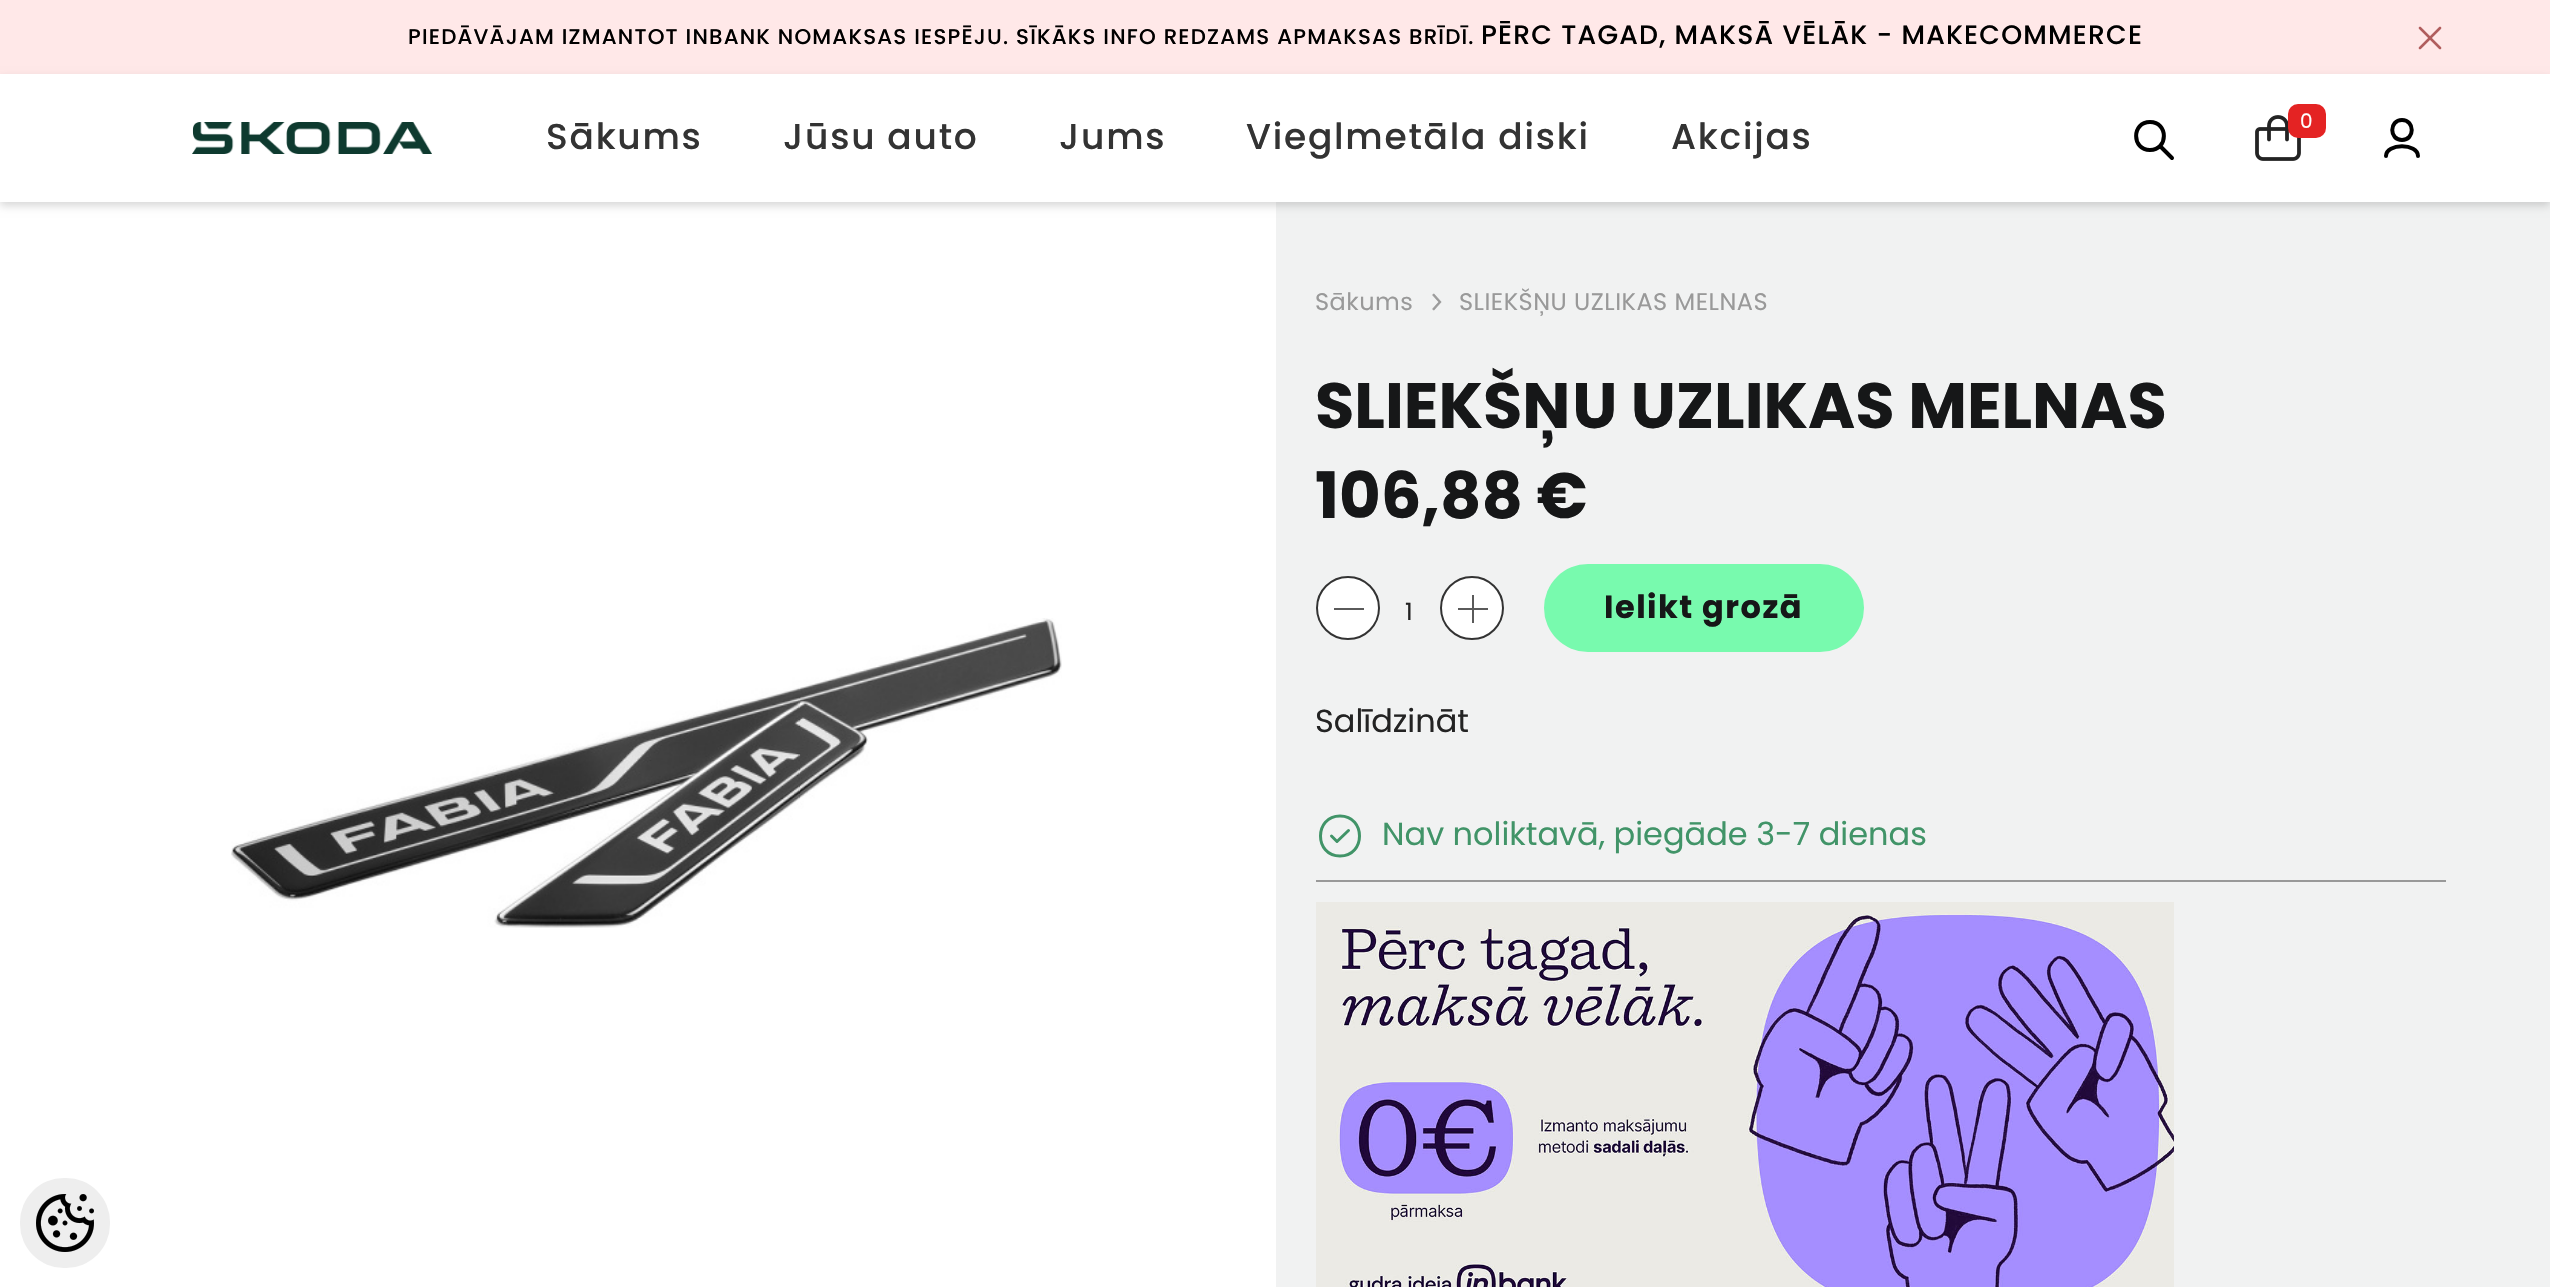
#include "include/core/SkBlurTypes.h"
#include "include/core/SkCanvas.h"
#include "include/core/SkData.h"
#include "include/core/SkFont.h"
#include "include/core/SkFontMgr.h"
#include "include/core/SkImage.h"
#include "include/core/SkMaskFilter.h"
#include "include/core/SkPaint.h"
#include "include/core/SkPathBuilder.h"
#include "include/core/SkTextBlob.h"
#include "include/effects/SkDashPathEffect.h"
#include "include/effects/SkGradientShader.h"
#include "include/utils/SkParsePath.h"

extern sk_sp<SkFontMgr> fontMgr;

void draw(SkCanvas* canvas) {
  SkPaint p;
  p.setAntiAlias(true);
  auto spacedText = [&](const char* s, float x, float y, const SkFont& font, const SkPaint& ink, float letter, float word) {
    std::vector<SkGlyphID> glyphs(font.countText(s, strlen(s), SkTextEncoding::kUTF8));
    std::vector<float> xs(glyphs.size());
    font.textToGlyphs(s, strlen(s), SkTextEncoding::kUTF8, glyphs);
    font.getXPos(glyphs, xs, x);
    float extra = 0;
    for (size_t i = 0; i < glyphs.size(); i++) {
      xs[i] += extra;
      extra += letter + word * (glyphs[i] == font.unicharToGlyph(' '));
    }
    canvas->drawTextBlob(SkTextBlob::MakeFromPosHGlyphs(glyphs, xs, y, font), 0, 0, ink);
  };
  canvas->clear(SK_ColorWHITE);
  p.setColor(SkColorSetRGB(255, 232, 232));
  canvas->drawRect(SkRect::MakeLTRB(0, 0, 2550, 74), p);
  canvas->drawImageRect(SkImages::DeferredFromEncodedData(SkData::MakeFromFileName("images/1.png")), SkRect::MakeLTRB(2418, 26, 2442, 50), SkSamplingOptions());
  p.setColor(SkColorSetRGB(241, 242, 242));
  canvas->drawRect(SkRect::MakeLTRB(1276, 202, 2550, 1287), p);
  p.setColor(SkColorSetARGB(38, 0, 0, 0));
  p.setMaskFilter(SkMaskFilter::MakeBlur(kNormal_SkBlurStyle, 4));
  canvas->drawRect(SkRect::MakeLTRB(0, 78, 2550, 206), p);
  p.setMaskFilter(nullptr);
  p.setColor(SK_ColorWHITE);
  canvas->drawRect(SkRect::MakeLTRB(0, 74, 2550, 202), p);
  canvas->drawImageRect(SkImages::DeferredFromEncodedData(SkData::MakeFromFileName("images/2.png")), SkRect::MakeLTRB(192, 122, 432, 154), SkSamplingOptions());
  p.setStyle(SkPaint::kStroke_Style);
  p.setStrokeWidth(4);
  p.setStrokeCap(SkPaint::kRound_Cap);
  p.setStrokeJoin(SkPaint::kRound_Join);
  p.setColor(SK_ColorBLACK);
  canvas->drawPath(SkPathBuilder().moveTo(2160, 146).lineTo(2172, 158).moveTo(2150, 150).cubicTo(2131.5f, 150, 2131.5f, 122, 2150, 122).cubicTo(2168.5f, 122, 2168.5f, 150, 2150, 150).close().detach(), p);
  canvas->drawImageRect(SkImages::DeferredFromEncodedData(SkData::MakeFromFileName("images/3.png")), SkRect::MakeLTRB(2255, 115, 2301, 161), SkSamplingOptions());
  p.setStyle(SkPaint::kFill_Style);
  p.setColor(SkColorSetRGB(228, 35, 35));
  canvas->drawRoundRect(SkRect::MakeLTRB(2288, 104, 2326, 138), 10, 10, p);
  p.setStyle(SkPaint::kStroke_Style);
  p.setColor(SK_ColorBLACK);
  canvas->drawPath(SkPathBuilder().moveTo(2418, 156).cubicTo(2418, 143, 2386, 143, 2386, 156).moveTo(2402, 140).cubicTo(2389, 140, 2389, 120, 2402, 120).cubicTo(2415, 120, 2415, 140, 2402, 140).close().detach(), p);
  canvas->drawImageRect(SkImages::DeferredFromEncodedData(SkData::MakeFromFileName("images/4.png")), SkRect::MakeLTRB(231, 618, 1062, 928), SkSamplingOptions());
  canvas->drawImageRect(SkImages::DeferredFromEncodedData(SkData::MakeFromFileName("images/5.png")), SkRect::MakeLTRB(1432, 293, 1442, 311), SkSamplingOptions());
  p.setStyle(SkPaint::kFill_Style);
  p.setColor(SK_ColorWHITE);
  canvas->drawCircle(1348, 608, 31, p);
  p.setStyle(SkPaint::kStroke_Style);
  p.setStrokeWidth(2);
  p.setStrokeCap(SkPaint::kButt_Cap);
  p.setStrokeJoin(SkPaint::kMiter_Join);
  p.setColor(SkColorSetRGB(51, 51, 51));
  canvas->drawCircle(1348, 608, 31, p);
  p.setStyle(SkPaint::kFill_Style);
  p.setColor(SkColorSetRGB(90, 90, 90));
  canvas->drawRect(SkRect::MakeLTRB(1334, 608, 1364, 610), p);
  p.setColor(SK_ColorWHITE);
  canvas->drawCircle(1472, 608, 31, p);
  p.setStyle(SkPaint::kStroke_Style);
  p.setColor(SkColorSetRGB(51, 51, 51));
  canvas->drawCircle(1472, 608, 31, p);
  p.setStyle(SkPaint::kFill_Style);
  p.setColor(SkColorSetRGB(90, 90, 90));
  canvas->drawRect(SkRect::MakeLTRB(1458, 608, 1488, 610), p);
  canvas->drawRect(SkRect::MakeLTRB(1472, 595, 1474, 623), p);
  p.setColor(SkColorSetRGB(120, 250, 174));
  canvas->drawRoundRect(SkRect::MakeLTRB(1544, 564, 1864, 652), 44, 44, p);
  p.setColor(SkColorSetRGB(153, 153, 153));
  canvas->drawRect(SkRect::MakeLTRB(1316, 880, 2446, 882), p);
  p.setStyle(SkPaint::kStroke_Style);
  p.setStrokeWidth(3);
  p.setStrokeCap(SkPaint::kRound_Cap);
  p.setStrokeJoin(SkPaint::kRound_Join);
  p.setColor(SkColorSetRGB(65, 148, 104));
  canvas->drawPath(SkPathBuilder().moveTo(1340, 856).cubicTo(1366, 856, 1366, 816, 1340, 816).cubicTo(1314, 816, 1314, 856, 1340, 856).close().moveTo(1331.5f, 836).lineTo(1337, 841.5f).lineTo(1348.5f, 830.5f).detach(), p);
  canvas->drawImageRect(SkImages::DeferredFromEncodedData(SkData::MakeFromFileName("images/6.png")), SkRect::MakeLTRB(1316, 902, 2174, 1287), SkSamplingOptions());
  p.setStyle(SkPaint::kFill_Style);
  p.setColor(SkColorSetRGB(238, 238, 238));
  canvas->drawRoundRect(SkRect::MakeLTRB(20, 1178, 110, 1268), 44, 44, p);
  canvas->drawImageRect(SkImages::DeferredFromEncodedData(SkData::MakeFromFileName("images/7.png")), SkRect::MakeLTRB(36, 1194, 94, 1252), SkSamplingOptions());
  SkFont font1(fontMgr->matchFamilyStyle("Poppins", SkFontStyle(500, SkFontStyle::kNormal_Width, SkFontStyle::kUpright_Slant)), 21.35f);
  font1.setSubpixel(true);
  p.setColor(SK_ColorBLACK);
  spacedText("PIEDĀVĀJAM IZMANTOT INBANK NOMAKSAS IESPĒJU. SĪKĀKS INFO REDZAMS APMAKSAS BRĪDĪ.", 408, 44, font1, p, 1.2f, 0);
  SkFont font2(fontMgr->matchFamilyStyle("Poppins", SkFontStyle(500, SkFontStyle::kNormal_Width, SkFontStyle::kUpright_Slant)), 26.7f);
  font2.setSubpixel(true);
  spacedText("PĒRC TAGAD, MAKSĀ VĒLĀK - MAKECOMMERCE", 1481, 44, font2, p, 1.2f, 0);
  SkFont font3(fontMgr->matchFamilyStyle("Poppins", SkFontStyle(500, SkFontStyle::kNormal_Width, SkFontStyle::kUpright_Slant)), 36);
  font3.setSubpixel(true);
  p.setColor(SkColorSetRGB(51, 51, 51));
  spacedText("Sākums", 546, 149, font3, p, 1.75f, 0);
  spacedText("Jūsu auto", 783, 149, font3, p, 1.75f, 0);
  spacedText("Jums", 1059, 149, font3, p, 1.75f, 0);
  spacedText("Vieglmetāla diski", 1246, 149, font3, p, 1.75f, 0);
  spacedText("Akcijas", 1671, 149, font3, p, 1.75f, 0);
  SkFont font4(fontMgr->matchFamilyStyle("Poppins", SkFontStyle::Normal()), 20);
  font4.setSubpixel(true);
  p.setColor(SK_ColorWHITE);
  canvas->drawString("0", 2300, 128, font4, p);
  SkFont font5(fontMgr->matchFamilyStyle("Poppins", SkFontStyle::Normal()), 24);
  font5.setSubpixel(true);
  p.setColor(SkColorSetRGB(153, 153, 153));
  spacedText("Sākums", 1315, 310, font5, p, 0.5f, 0);
  spacedText("SLIEKŠŅU UZLIKAS MELNAS", 1459, 310, font5, p, 0.5f, 0);
  SkFont font6(fontMgr->matchFamilyStyle("Poppins", SkFontStyle::Bold()), 64);
  font6.setSubpixel(true);
  p.setColor(SkColorSetRGB(22, 23, 24));
  canvas->drawString("SLIEKŠŅU UZLIKAS MELNAS", 1315, 428, font6, p);
  canvas->drawString("106,88 €", 1315, 518, font6, p);
  p.setColor(SkColorSetRGB(35, 35, 35));
  spacedText("1", 1405, 620, font5, p, 0.5f, 0);
  SkFont font7(fontMgr->matchFamilyStyle("Poppins", SkFontStyle::Bold()), 32);
  font7.setSubpixel(true);
  p.setColor(SkColorSetRGB(22, 23, 24));
  spacedText("Ielikt grozā", 1604, 618, font7, p, 1.5f, 0);
  SkFont font8(fontMgr->matchFamilyStyle("Poppins", SkFontStyle::Normal()), 32);
  font8.setSubpixel(true);
  p.setColor(SkColorSetRGB(35, 35, 35));
  canvas->drawString("Salīdzināt", 1315, 732, font8, p);
  p.setColor(SkColorSetRGB(65, 148, 104));
  canvas->drawString("Nav noliktavā, piegāde 3-7 dienas", 1382, 845, font8, p);
}
